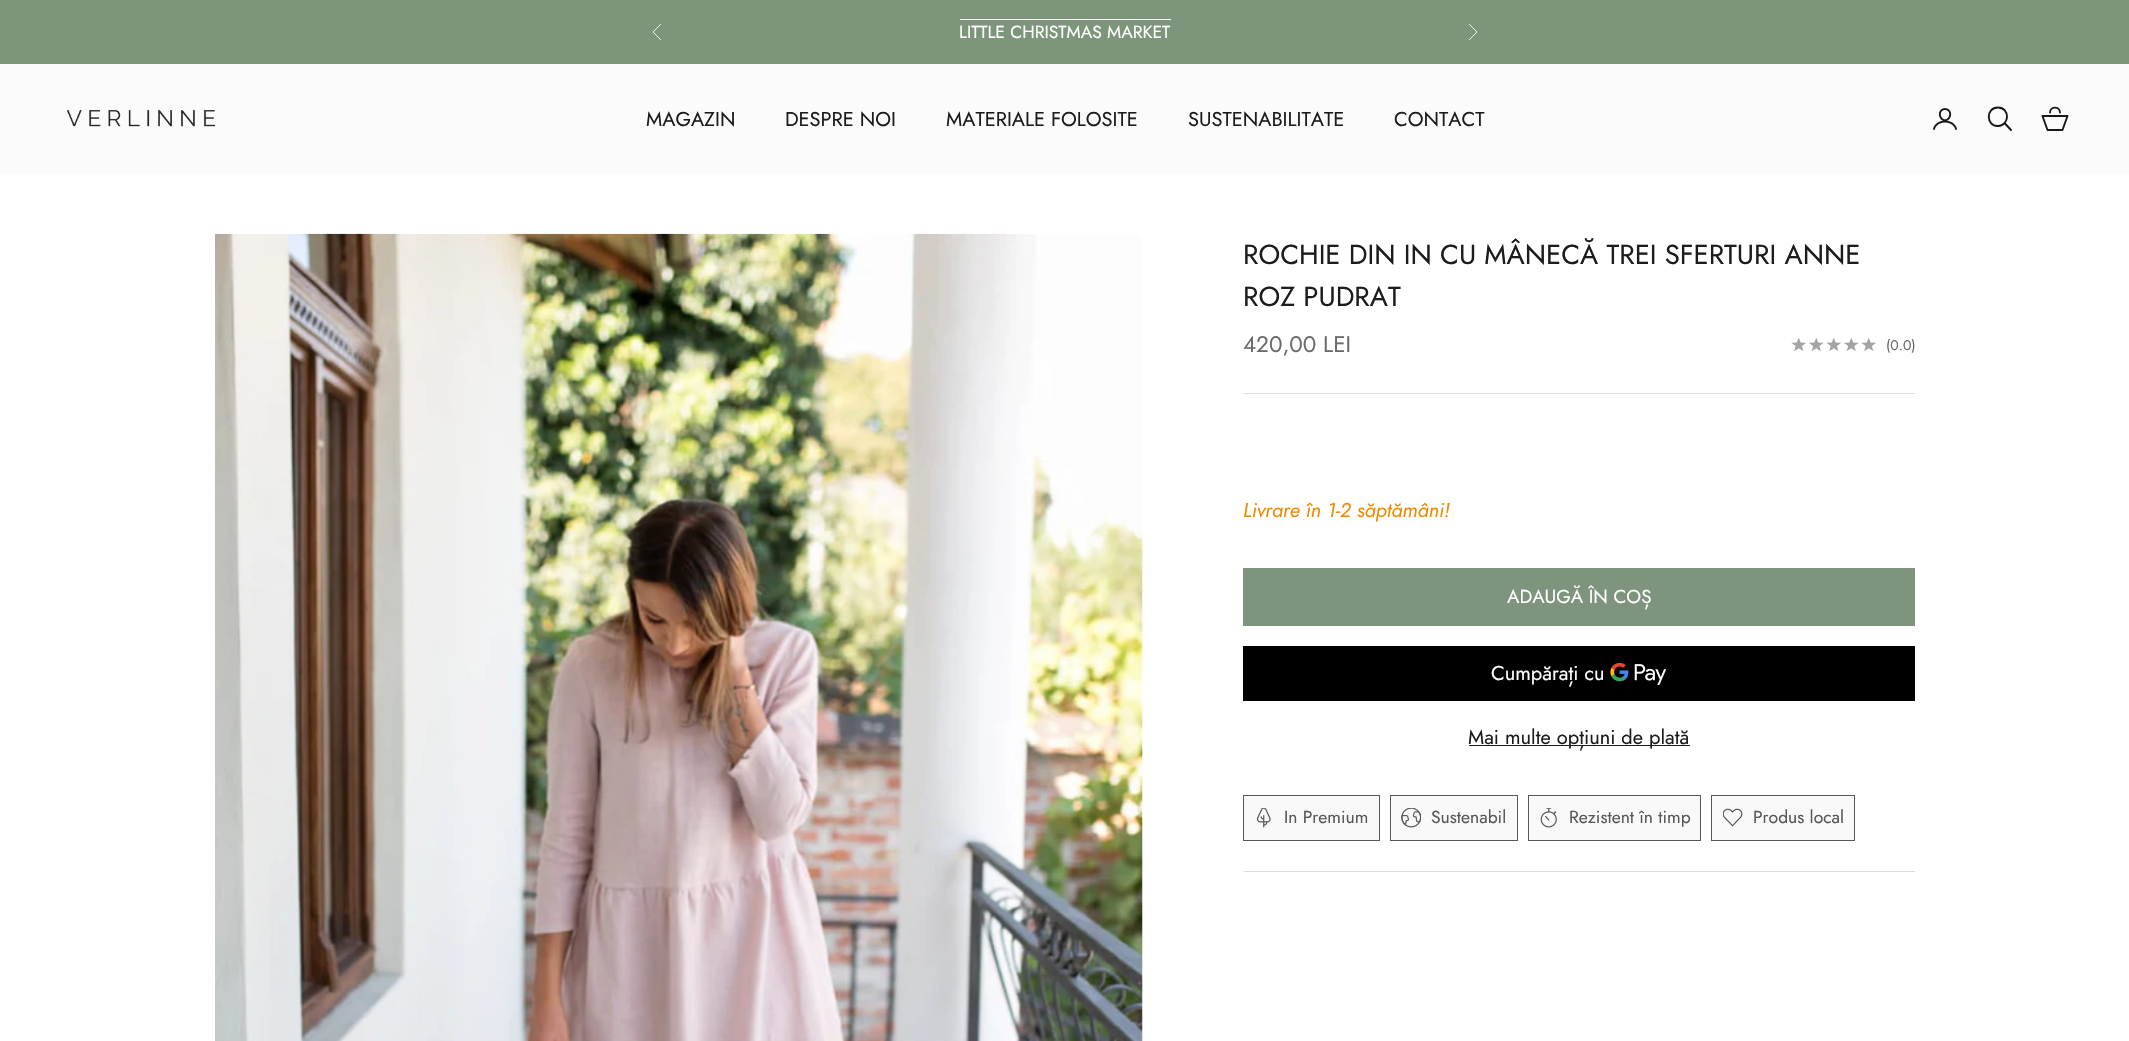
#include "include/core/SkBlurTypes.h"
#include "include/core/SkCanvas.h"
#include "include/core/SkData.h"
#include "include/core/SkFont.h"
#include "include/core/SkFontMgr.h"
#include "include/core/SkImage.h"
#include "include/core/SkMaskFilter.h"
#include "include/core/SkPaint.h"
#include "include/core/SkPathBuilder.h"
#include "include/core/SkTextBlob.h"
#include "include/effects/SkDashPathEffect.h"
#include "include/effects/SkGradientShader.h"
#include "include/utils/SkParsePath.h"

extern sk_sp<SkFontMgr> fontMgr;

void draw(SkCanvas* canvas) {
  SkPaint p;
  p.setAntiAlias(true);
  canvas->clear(SK_ColorWHITE);
  p.setColor(SkColorSetRGB(125, 149, 123));
  canvas->drawRect(SkRect::MakeLTRB(0, 0, 2129, 64), p);
  p.setStyle(SkPaint::kStroke_Style);
  p.setStrokeWidth(0.9f);
  p.setStrokeCap(SkPaint::kSquare_Cap);
  p.setColor(SK_ColorWHITE);
  canvas->drawPath(SkPathBuilder().moveTo(660.5f, 24.5f).lineTo(653, 32).lineTo(660.5f, 39.5f).detach(), p);
  p.setStyle(SkPaint::kFill_Style);
  canvas->drawRect(SkRect::MakeLTRB(960, 19, 1171, 20), p);
  p.setStyle(SkPaint::kStroke_Style);
  canvas->drawPath(SkPathBuilder().moveTo(1469.5f, 39.5f).lineTo(1477, 32).lineTo(1469.5f, 24.5f).detach(), p);
  p.setStyle(SkPaint::kFill_Style);
  p.setColor(SkColorSetRGB(250, 251, 250));
  canvas->drawRect(SkRect::MakeLTRB(0, 64, 2129, 174), p);
  canvas->drawImageRect(SkImages::DeferredFromEncodedData(SkData::MakeFromFileName("images/1.png")), SkRect::MakeLTRB(66, 110, 216, 127), SkSamplingOptions());
  canvas->drawImageRect(SkImages::DeferredFromEncodedData(SkData::MakeFromFileName("images/2.png")), SkRect::MakeLTRB(1932, 108, 1958, 130), SkSamplingOptions());
  p.setStyle(SkPaint::kStroke_Style);
  p.setStrokeWidth(1.9f);
  p.setStrokeCap(SkPaint::kButt_Cap);
  p.setColor(SkColorSetRGB(23, 23, 23));
  canvas->drawPath(SkPathBuilder().moveTo(1998, 107.5f).cubicTo(1985.5f, 107.5f, 1986, 126.5f, 1998, 126).cubicTo(2010, 125.5f, 2010, 107.5f, 1998, 107.5f).close().detach(), p);
  p.setStrokeCap(SkPaint::kRound_Cap);
  canvas->drawPath(SkPathBuilder().moveTo(2005, 123.5f).lineTo(2011, 130).detach(), p);
  p.setStrokeJoin(SkPaint::kRound_Join);
  canvas->drawPath(SkPathBuilder().moveTo(2042.5f, 116).lineTo(2067.5f, 116).lineTo(2062.5f, 130).lineTo(2047.5f, 130).close().moveTo(2060, 112.5f).cubicTo(2060, 106, 2050, 106, 2050, 112.5f).detach(), p);
  canvas->drawImageRect(SkImages::DeferredFromEncodedData(SkData::MakeFromFileName("images/3.png")), SkRect::MakeLTRB(215, 233, 1143, 1041), SkSamplingOptions());
  canvas->drawImageRect(SkImages::DeferredFromEncodedData(SkData::MakeFromFileName("images/4.png")), SkRect::MakeLTRB(1791, 338, 1806, 351), SkSamplingOptions());
  canvas->drawImageRect(SkImages::DeferredFromEncodedData(SkData::MakeFromFileName("images/5.png")), SkRect::MakeLTRB(1809, 338, 1824, 351), SkSamplingOptions());
  canvas->drawImageRect(SkImages::DeferredFromEncodedData(SkData::MakeFromFileName("images/4.png")), SkRect::MakeLTRB(1826, 338, 1841, 351), SkSamplingOptions());
  canvas->drawImageRect(SkImages::DeferredFromEncodedData(SkData::MakeFromFileName("images/5.png")), SkRect::MakeLTRB(1844, 338, 1859, 351), SkSamplingOptions());
  canvas->drawImageRect(SkImages::DeferredFromEncodedData(SkData::MakeFromFileName("images/4.png")), SkRect::MakeLTRB(1861, 338, 1876, 351), SkSamplingOptions());
  p.setStyle(SkPaint::kFill_Style);
  p.setColor(SkColorSetRGB(221, 221, 221));
  canvas->drawRect(SkRect::MakeLTRB(1243, 393, 1915, 394), p);
  p.setColor(SkColorSetRGB(126, 148, 124));
  canvas->drawRect(SkRect::MakeLTRB(1243.5f, 568.5f, 1914.5f, 625.5f), p);
  p.setStyle(SkPaint::kStroke_Style);
  p.setStrokeWidth(1);
  p.setStrokeCap(SkPaint::kButt_Cap);
  p.setStrokeJoin(SkPaint::kMiter_Join);
  canvas->drawRect(SkRect::MakeLTRB(1243.5f, 568.5f, 1914.5f, 625.5f), p);
  p.setStyle(SkPaint::kFill_Style);
  p.setColor(SK_ColorBLACK);
  canvas->drawRect(SkRect::MakeLTRB(1243, 646, 1915, 701), p);
  canvas->drawImageRect(SkImages::DeferredFromEncodedData(SkData::MakeFromFileName("images/6.png")), SkRect::MakeLTRB(1610, 663, 1666, 685), SkSamplingOptions());
  p.setColor(SkColorSetRGB(28, 28, 28));
  canvas->drawRect(SkRect::MakeLTRB(1469, 745, 1690, 746), p);
  p.setColor(SkColorSetRGB(249, 249, 249));
  canvas->drawRect(SkRect::MakeLTRB(1243.5f, 795.5f, 1379.5f, 840.5f), p);
  p.setStyle(SkPaint::kStroke_Style);
  p.setColor(SkColorSetRGB(87, 87, 87));
  canvas->drawRect(SkRect::MakeLTRB(1243.5f, 795.5f, 1379.5f, 840.5f), p);
  canvas->drawImageRect(SkImages::DeferredFromEncodedData(SkData::MakeFromFileName("images/7.png")), SkRect::MakeLTRB(1256, 808, 1271, 828), SkSamplingOptions());
  p.setStyle(SkPaint::kFill_Style);
  p.setColor(SkColorSetRGB(249, 249, 249));
  canvas->drawRect(SkRect::MakeLTRB(1390.5f, 795.5f, 1517.5f, 840.5f), p);
  p.setStyle(SkPaint::kStroke_Style);
  p.setColor(SkColorSetRGB(87, 87, 87));
  canvas->drawRect(SkRect::MakeLTRB(1390.5f, 795.5f, 1517.5f, 840.5f), p);
  canvas->drawImageRect(SkImages::DeferredFromEncodedData(SkData::MakeFromFileName("images/8.png")), SkRect::MakeLTRB(1401, 808, 1421, 828), SkSamplingOptions());
  p.setStyle(SkPaint::kFill_Style);
  p.setColor(SkColorSetRGB(249, 249, 249));
  canvas->drawRect(SkRect::MakeLTRB(1528.5f, 795.5f, 1700.5f, 840.5f), p);
  p.setStyle(SkPaint::kStroke_Style);
  p.setColor(SkColorSetRGB(87, 87, 87));
  canvas->drawRect(SkRect::MakeLTRB(1528.5f, 795.5f, 1700.5f, 840.5f), p);
  canvas->drawImageRect(SkImages::DeferredFromEncodedData(SkData::MakeFromFileName("images/9.png")), SkRect::MakeLTRB(1540, 808, 1557, 828), SkSamplingOptions());
  p.setStyle(SkPaint::kFill_Style);
  p.setColor(SkColorSetRGB(249, 249, 249));
  canvas->drawRect(SkRect::MakeLTRB(1711.5f, 795.5f, 1854.5f, 840.5f), p);
  p.setStyle(SkPaint::kStroke_Style);
  p.setColor(SkColorSetRGB(87, 87, 87));
  canvas->drawRect(SkRect::MakeLTRB(1711.5f, 795.5f, 1854.5f, 840.5f), p);
  canvas->drawImageRect(SkImages::DeferredFromEncodedData(SkData::MakeFromFileName("images/10.png")), SkRect::MakeLTRB(1723, 808, 1743, 827), SkSamplingOptions());
  p.setStyle(SkPaint::kFill_Style);
  p.setColor(SkColorSetRGB(221, 221, 221));
  canvas->drawRect(SkRect::MakeLTRB(1243, 871, 1915, 872), p);
  SkFont font1(fontMgr->matchFamilyStyle("Jost", SkFontStyle::Normal()), 17.5f);
  font1.setSubpixel(true);
  p.setColor(SK_ColorWHITE);
  canvas->drawString("LITTLE CHRISTMAS MARKET", 959, 38, font1, p);
  SkFont font2(fontMgr->matchFamilyStyle("Jost", SkFontStyle::Normal()), 20);
  font2.setSubpixel(true);
  p.setColor(SkColorSetRGB(28, 28, 28));
  canvas->drawString("MAGAZIN", 646, 126, font2, p);
  canvas->drawString("DESPRE NOI", 785, 126, font2, p);
  canvas->drawString("MATERIALE FOLOSITE", 946, 126, font2, p);
  canvas->drawString("SUSTENABILITATE", 1188, 126, font2, p);
  canvas->drawString("CONTACT", 1394, 126, font2, p);
  SkFont font3(fontMgr->matchFamilyStyle("Jost", SkFontStyle::Normal()), 27.5f);
  font3.setSubpixel(true);
  canvas->drawString("ROCHIE DIN IN CU MÂNECĂ TREI SFERTURI ANNE", 1243, 264, font3, p);
  canvas->drawString("ROZ PUDRAT", 1243, 306, font3, p);
  SkFont font4(fontMgr->matchFamilyStyle("Jost", SkFontStyle::Normal()), 22.5f);
  font4.setSubpixel(true);
  p.setColor(SkColorSetRGB(107, 107, 107));
  canvas->drawString("420,00 LEI", 1243, 352, font4, p);
  SkFont font5(fontMgr->matchFamilyStyle("Jost", SkFontStyle::Normal()), 14);
  font5.setSubpixel(true);
  canvas->drawString("(0.0)", 1886, 350, font5, p);
  SkFont font6(fontMgr->matchFamilyStyle("Jost", SkFontStyle::Italic()), 20);
  font6.setSubpixel(true);
  p.setColor(SkColorSetRGB(237, 138, 0));
  canvas->drawString("Livrare în 1-2 săptămâni!", 1243, 517, font6, p);
  SkFont font7(fontMgr->matchFamilyStyle("Jost", SkFontStyle::Normal()), 18.75f);
  font7.setSubpixel(true);
  p.setColor(SK_ColorWHITE);
  canvas->drawString("ADAUGĂ ÎN COȘ", 1507, 603, font7, p);
  canvas->drawString("Cumpărați cu", 1491, 680, font2, p);
  p.setColor(SkColorSetRGB(28, 28, 28));
  canvas->drawString("Mai multe opțiuni de plată", 1468, 744, font2, p);
  p.setColor(SkColorSetRGB(87, 87, 87));
  canvas->drawString("In Premium", 1284, 823, font1, p);
  canvas->drawString("Sustenabil", 1431, 823, font1, p);
  canvas->drawString("Rezistent în timp", 1569, 823, font1, p);
  canvas->drawString("Produs local", 1753, 823, font1, p);
}
